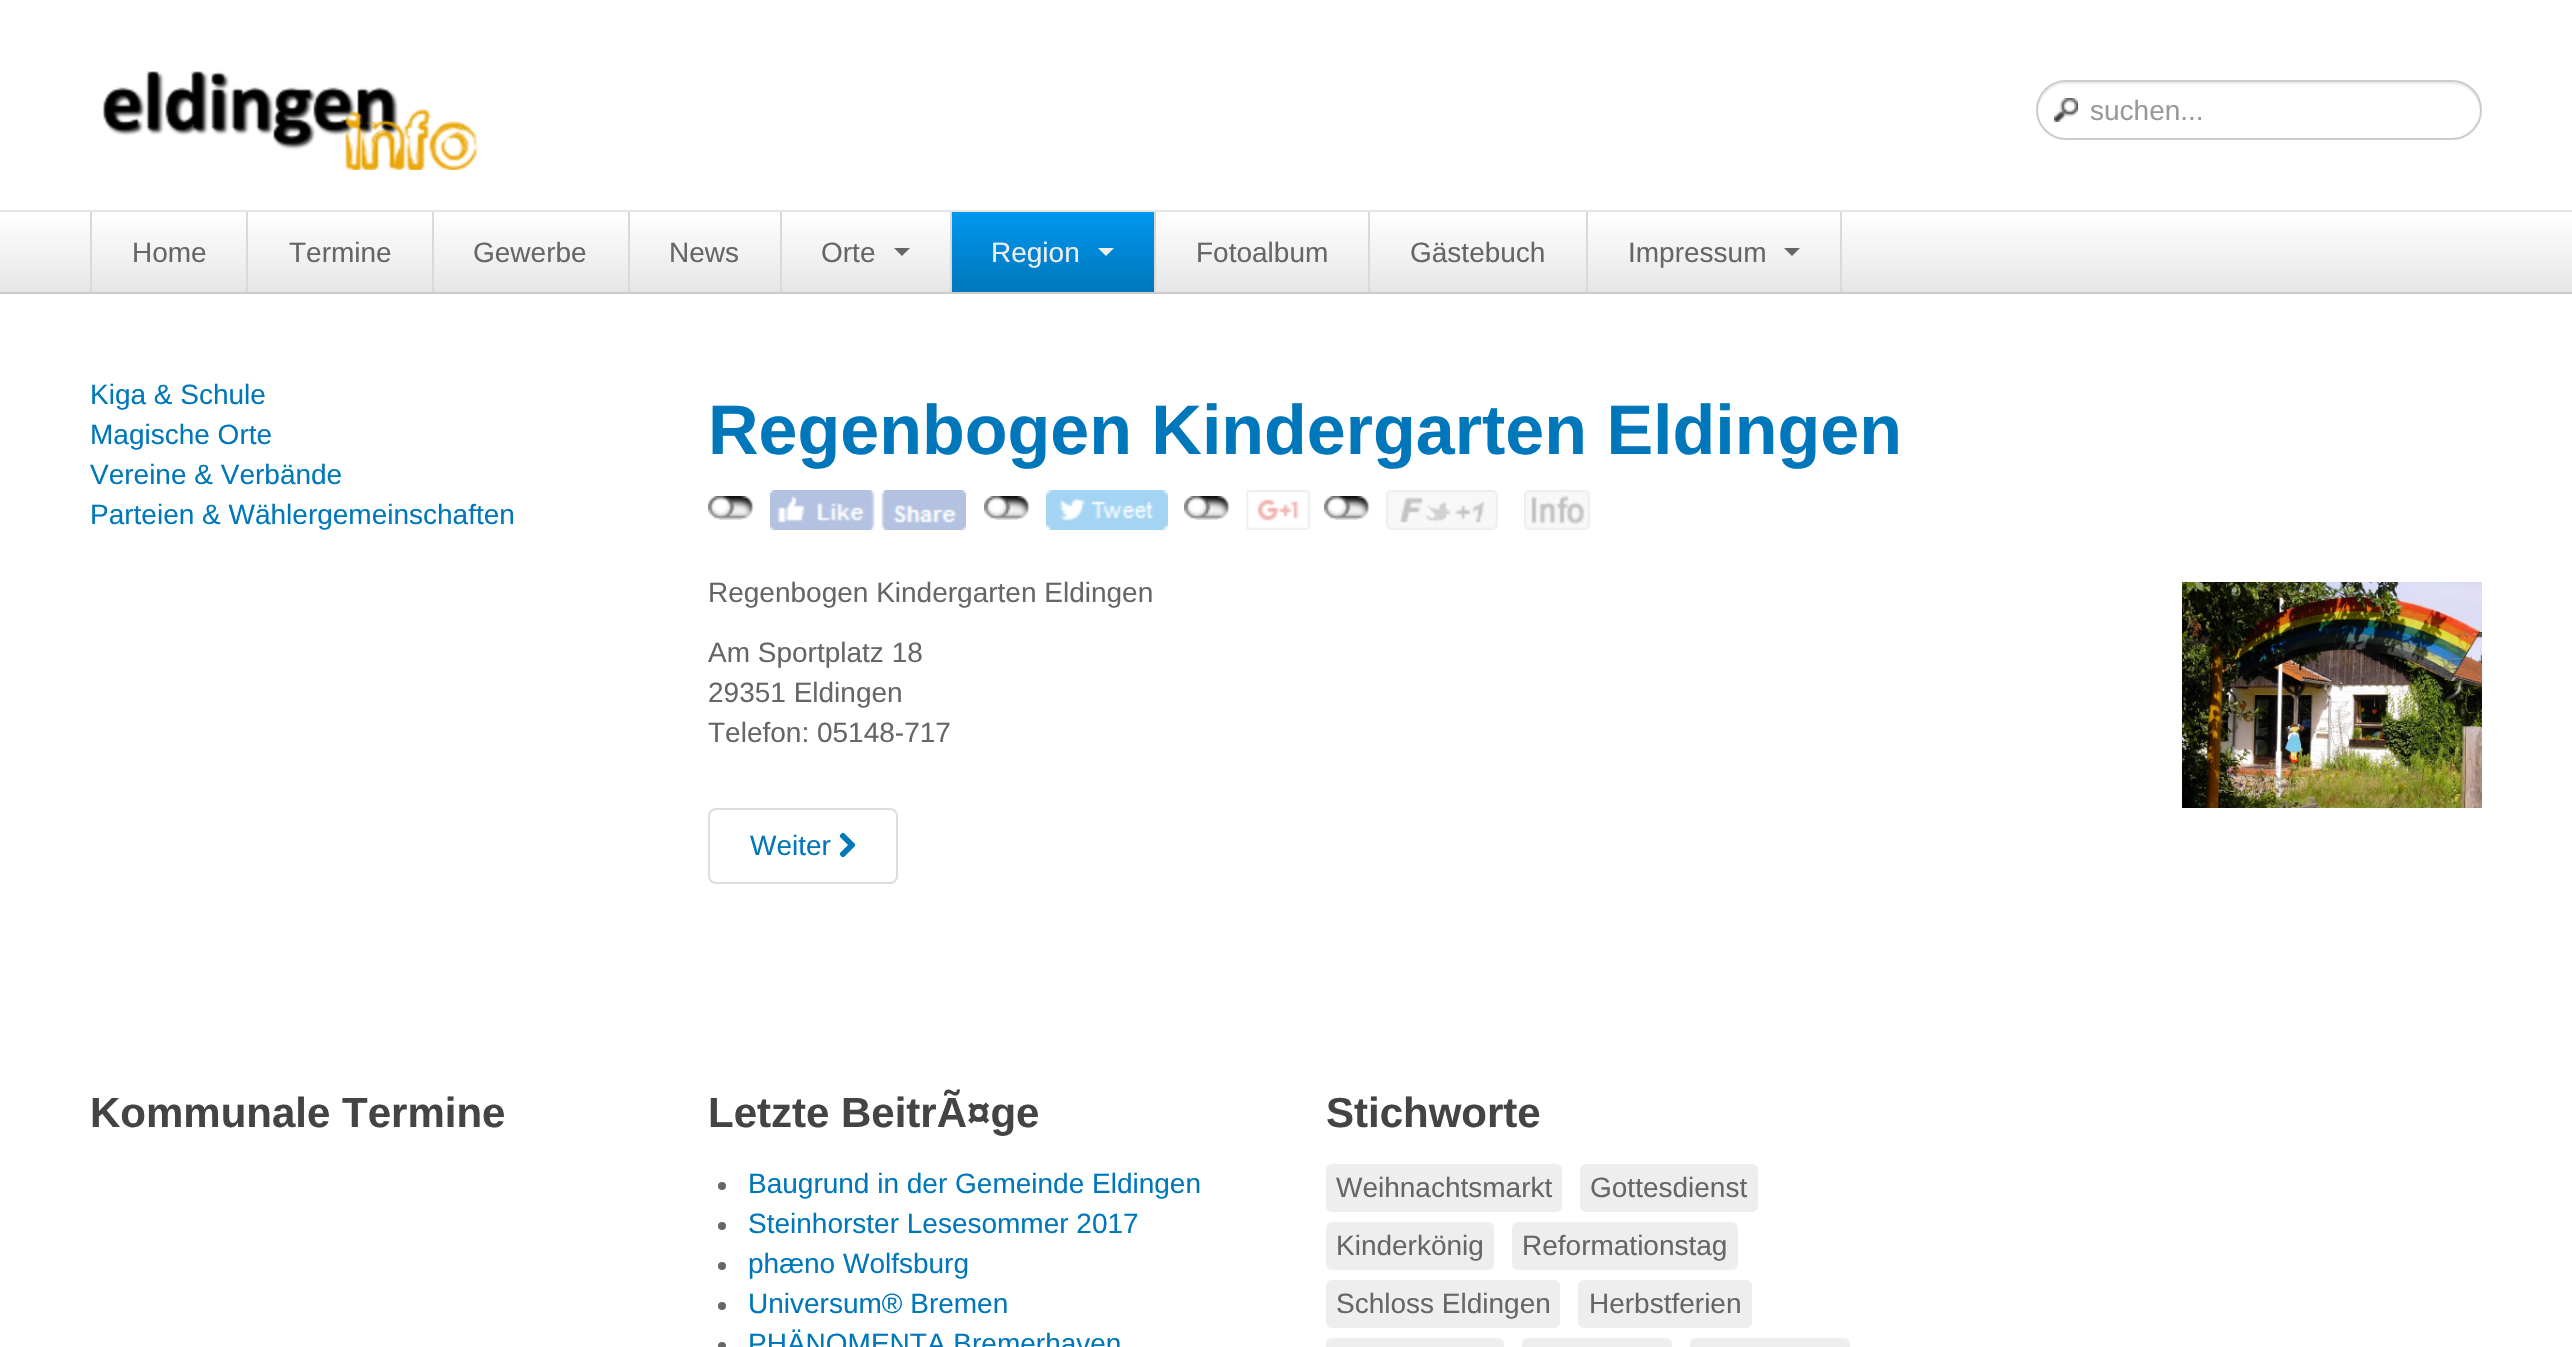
#include "include/core/SkBlurTypes.h"
#include "include/core/SkCanvas.h"
#include "include/core/SkData.h"
#include "include/core/SkFont.h"
#include "include/core/SkFontMgr.h"
#include "include/core/SkImage.h"
#include "include/core/SkMaskFilter.h"
#include "include/core/SkPaint.h"
#include "include/core/SkPathBuilder.h"
#include "include/core/SkTextBlob.h"
#include "include/effects/SkDashPathEffect.h"
#include "include/effects/SkGradientShader.h"
#include "include/utils/SkParsePath.h"

extern sk_sp<SkFontMgr> fontMgr;

void draw(SkCanvas* canvas) {
  SkPaint p;
  p.setAntiAlias(true);
  canvas->clear(SK_ColorWHITE);
  canvas->drawImageRect(SkImages::DeferredFromEncodedData(SkData::MakeFromFileName("images/1.png")), SkRect::MakeLTRB(102, 71, 479, 170), SkSamplingOptions());
  canvas->drawImageRect(SkImages::DeferredFromEncodedData(SkData::MakeFromFileName("images/2.png")), SkRect::MakeLTRB(2054, 98, 2078, 122), SkSamplingOptions());
  p.setColor(SkColorSetRGB(236, 236, 236));
  canvas->drawPath(SkPathBuilder().moveTo(2066, 84).lineTo(2452, 84).cubicTo(2467, 84, 2479, 96, 2480, 111).cubicTo(2481, 95, 2468, 82, 2452, 82).lineTo(2066, 82).cubicTo(2050, 82, 2037, 95, 2038, 111).cubicTo(2039, 96, 2051, 84, 2066, 84).close().detach(), p);
  p.setStyle(SkPaint::kStroke_Style);
  p.setStrokeWidth(2);
  p.setColor(SkColorSetRGB(204, 204, 204));
  canvas->drawRoundRect(SkRect::MakeLTRB(2037, 81, 2481, 139), 29, 29, p);
  p.setStyle(SkPaint::kFill_Style);
  {
    const SkColor colors[] = {SK_ColorWHITE, SkColorSetRGB(230, 230, 230)};
    const float stops[] = {0, 1};
    const SkPoint ends[] = {{1286, 212}, {1286, 292}};
    p.setShader(SkGradientShader::MakeLinear(ends, colors, stops, 2, SkTileMode::kClamp));
    p.setAlpha(255);
  }
  canvas->drawRect(SkRect::MakeLTRB(0, 220, 2572, 292), p);
  p.setShader(nullptr);
  p.setColor(SkColorSetRGB(230, 230, 230));
  canvas->drawRect(SkRect::MakeLTRB(0, 210, 2572, 212), p);
  p.setColor(SkColorSetRGB(204, 204, 204));
  canvas->drawRect(SkRect::MakeLTRB(0, 292, 2572, 294), p);
  p.setColor(SkColorSetRGB(217, 217, 217));
  canvas->drawRect(SkRect::MakeLTRB(90, 212, 92, 292), p);
  canvas->drawRect(SkRect::MakeLTRB(246, 212, 248, 292), p);
  canvas->drawRect(SkRect::MakeLTRB(432, 212, 434, 292), p);
  canvas->drawRect(SkRect::MakeLTRB(628, 212, 630, 292), p);
  canvas->drawRect(SkRect::MakeLTRB(780, 212, 782, 292), p);
  canvas->drawRect(SkRect::MakeLTRB(950, 212, 952, 292), p);
  p.setColor(SkColorSetRGB(102, 102, 102));
  canvas->drawPath(SkPathBuilder().moveTo(894, 248).lineTo(910, 248).lineTo(902, 256).close().detach(), p);
  {
    const SkColor colors[] = {SkColorSetRGB(0, 151, 238), SkColorSetRGB(0, 119, 187)};
    const float stops[] = {0, 1};
    const SkPoint ends[] = {{1053, 212}, {1053, 292}};
    p.setShader(SkGradientShader::MakeLinear(ends, colors, stops, 2, SkTileMode::kClamp));
    p.setAlpha(255);
  }
  canvas->drawRect(SkRect::MakeLTRB(952, 212, 1154, 292), p);
  p.setShader(nullptr);
  p.setColor(SkColorSetRGB(217, 217, 217));
  canvas->drawRect(SkRect::MakeLTRB(1154, 212, 1156, 292), p);
  p.setColor(SkColorSetRGB(238, 238, 238));
  canvas->drawPath(SkPathBuilder().moveTo(1098, 248).lineTo(1114, 248).lineTo(1106, 256).close().detach(), p);
  p.setColor(SkColorSetRGB(217, 217, 217));
  canvas->drawRect(SkRect::MakeLTRB(1368, 212, 1370, 292), p);
  canvas->drawRect(SkRect::MakeLTRB(1586, 212, 1588, 292), p);
  canvas->drawRect(SkRect::MakeLTRB(1840, 212, 1842, 292), p);
  p.setColor(SkColorSetRGB(102, 102, 102));
  canvas->drawPath(SkPathBuilder().moveTo(1784, 248).lineTo(1800, 248).lineTo(1792, 256).close().detach(), p);
  canvas->drawImageRect(SkImages::DeferredFromEncodedData(SkData::MakeFromFileName("images/3.png")), SkRect::MakeLTRB(708, 496, 754, 520), SkSamplingOptions());
  canvas->drawImageRect(SkImages::DeferredFromEncodedData(SkData::MakeFromFileName("images/4.png")), SkRect::MakeLTRB(770, 490, 966, 530), SkSamplingOptions());
  canvas->drawImageRect(SkImages::DeferredFromEncodedData(SkData::MakeFromFileName("images/3.png")), SkRect::MakeLTRB(984, 496, 1030, 520), SkSamplingOptions());
  canvas->drawImageRect(SkImages::DeferredFromEncodedData(SkData::MakeFromFileName("images/5.png")), SkRect::MakeLTRB(1046, 490, 1168, 530), SkSamplingOptions());
  canvas->drawImageRect(SkImages::DeferredFromEncodedData(SkData::MakeFromFileName("images/3.png")), SkRect::MakeLTRB(1184, 496, 1230, 520), SkSamplingOptions());
  canvas->drawImageRect(SkImages::DeferredFromEncodedData(SkData::MakeFromFileName("images/6.png")), SkRect::MakeLTRB(1246, 490, 1310, 530), SkSamplingOptions());
  canvas->drawImageRect(SkImages::DeferredFromEncodedData(SkData::MakeFromFileName("images/3.png")), SkRect::MakeLTRB(1324, 496, 1370, 520), SkSamplingOptions());
  canvas->drawImageRect(SkImages::DeferredFromEncodedData(SkData::MakeFromFileName("images/7.png")), SkRect::MakeLTRB(1386, 490, 1498, 530), SkSamplingOptions());
  canvas->drawImageRect(SkImages::DeferredFromEncodedData(SkData::MakeFromFileName("images/8.png")), SkRect::MakeLTRB(1524, 490, 1590, 530), SkSamplingOptions());
  canvas->drawImageRect(SkImages::DeferredFromEncodedData(SkData::MakeFromFileName("images/9.png")), SkRect::MakeLTRB(2182, 582, 2482, 808), SkSamplingOptions());
  p.setStyle(SkPaint::kStroke_Style);
  p.setColor(SkColorSetRGB(221, 221, 221));
  canvas->drawRoundRect(SkRect::MakeLTRB(709, 809, 897, 883), 7, 7, p);
  canvas->drawImageRect(SkImages::DeferredFromEncodedData(SkData::MakeFromFileName("images/10.png")), SkRect::MakeLTRB(839, 832, 856, 858), SkSamplingOptions());
  p.setStyle(SkPaint::kFill_Style);
  p.setColor(SkColorSetRGB(102, 102, 102));
  canvas->drawCircle(722, 1186, 4, p);
  canvas->drawCircle(722, 1226, 4, p);
  canvas->drawCircle(722, 1266, 4, p);
  canvas->drawCircle(722, 1306, 4, p);
  canvas->drawCircle(722, 1346, 4, p);
  p.setColor(SkColorSetRGB(238, 238, 238));
  canvas->drawRoundRect(SkRect::MakeLTRB(1326, 1164, 1562, 1212), 6, 6, p);
  canvas->drawRoundRect(SkRect::MakeLTRB(1580, 1164, 1758, 1212), 6, 6, p);
  canvas->drawRoundRect(SkRect::MakeLTRB(1326, 1222, 1494, 1270), 6, 6, p);
  canvas->drawRoundRect(SkRect::MakeLTRB(1512, 1222, 1738, 1270), 6, 6, p);
  canvas->drawRoundRect(SkRect::MakeLTRB(1326, 1280, 1560, 1328), 6, 6, p);
  canvas->drawRoundRect(SkRect::MakeLTRB(1578, 1280, 1752, 1328), 6, 6, p);
  canvas->drawRoundRect(SkRect::MakeLTRB(1326, 1338, 1504, 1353), 6, 6, p);
  canvas->drawRoundRect(SkRect::MakeLTRB(1522, 1338, 1672, 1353), 6, 6, p);
  canvas->drawRoundRect(SkRect::MakeLTRB(1690, 1338, 1850, 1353), 6, 6, p);
  SkFont font1(fontMgr->matchFamilyStyle("Liberation Sans", SkFontStyle::Normal()), 28);
  font1.setSubpixel(true);
  p.setColor(SkColorSetRGB(153, 153, 153));
  canvas->drawString("suchen...", 2090, 120, font1, p);
  p.setColor(SkColorSetRGB(102, 102, 102));
  canvas->drawString("Home", 132, 262, font1, p);
  canvas->drawString("Termine", 289, 262, font1, p);
  canvas->drawString("Gewerbe", 473, 262, font1, p);
  canvas->drawString("News", 669, 262, font1, p);
  canvas->drawString("Orte", 821, 262, font1, p);
  p.setColor(SkColorSetRGB(238, 238, 238));
  canvas->drawString("Region", 991, 262, font1, p);
  p.setColor(SkColorSetRGB(102, 102, 102));
  canvas->drawString("Fotoalbum", 1196, 262, font1, p);
  canvas->drawString("Gästebuch", 1410, 262, font1, p);
  canvas->drawString("Impressum", 1628, 262, font1, p);
  p.setColor(SkColorSetRGB(0, 119, 187));
  canvas->drawString("Kiga & Schule", 90, 404, font1, p);
  canvas->drawString("Magische Orte", 90, 444, font1, p);
  canvas->drawString("Vereine & Verbände", 90, 484, font1, p);
  canvas->drawString("Parteien & Wählergemeinschaften", 90, 524, font1, p);
  SkFont font2(fontMgr->matchFamilyStyle("Liberation Sans", SkFontStyle::Bold()), 70);
  font2.setSubpixel(true);
  canvas->drawString("Regenbogen Kindergarten Eldingen", 708, 454, font2, p);
  p.setColor(SkColorSetRGB(102, 102, 102));
  canvas->drawString("Regenbogen Kindergarten Eldingen", 708, 602, font1, p);
  canvas->drawString("Am Sportplatz 18", 708, 662, font1, p);
  canvas->drawString("29351 Eldingen", 708, 702, font1, p);
  canvas->drawString("Telefon: 05148-717", 708, 742, font1, p);
  p.setColor(SkColorSetRGB(0, 119, 187));
  canvas->drawString("Weiter", 750, 855, font1, p);
  SkFont font3(fontMgr->matchFamilyStyle("Liberation Sans", SkFontStyle::Bold()), 42);
  font3.setSubpixel(true);
  p.setColor(SkColorSetRGB(68, 68, 68));
  canvas->drawString("Kommunale Termine", 90, 1127, font3, p);
  canvas->drawString("Letzte BeitrÃ¤ge", 708, 1127, font3, p);
  p.setColor(SkColorSetRGB(0, 119, 187));
  canvas->drawString("Baugrund in der Gemeinde Eldingen", 748, 1193, font1, p);
  canvas->drawString("Steinhorster Lesesommer 2017", 748, 1233, font1, p);
  canvas->drawString("phæno Wolfsburg", 748, 1273, font1, p);
  canvas->drawString("Universum® Bremen", 748, 1313, font1, p);
  canvas->drawString("PHÄNOMENTA Bremerhaven", 748, 1353, font1, p);
  p.setColor(SkColorSetRGB(68, 68, 68));
  canvas->drawString("Stichworte", 1326, 1127, font3, p);
  p.setColor(SkColorSetRGB(102, 102, 102));
  canvas->drawString("Weihnachtsmarkt", 1336, 1197, font1, p);
  canvas->drawString("Gottesdienst", 1590, 1197, font1, p);
  canvas->drawString("Kinderkönig", 1336, 1255, font1, p);
  canvas->drawString("Reformationstag", 1522, 1255, font1, p);
  canvas->drawString("Schloss Eldingen", 1336, 1313, font1, p);
  canvas->drawString("Herbstferien", 1589, 1313, font1, p);
}
